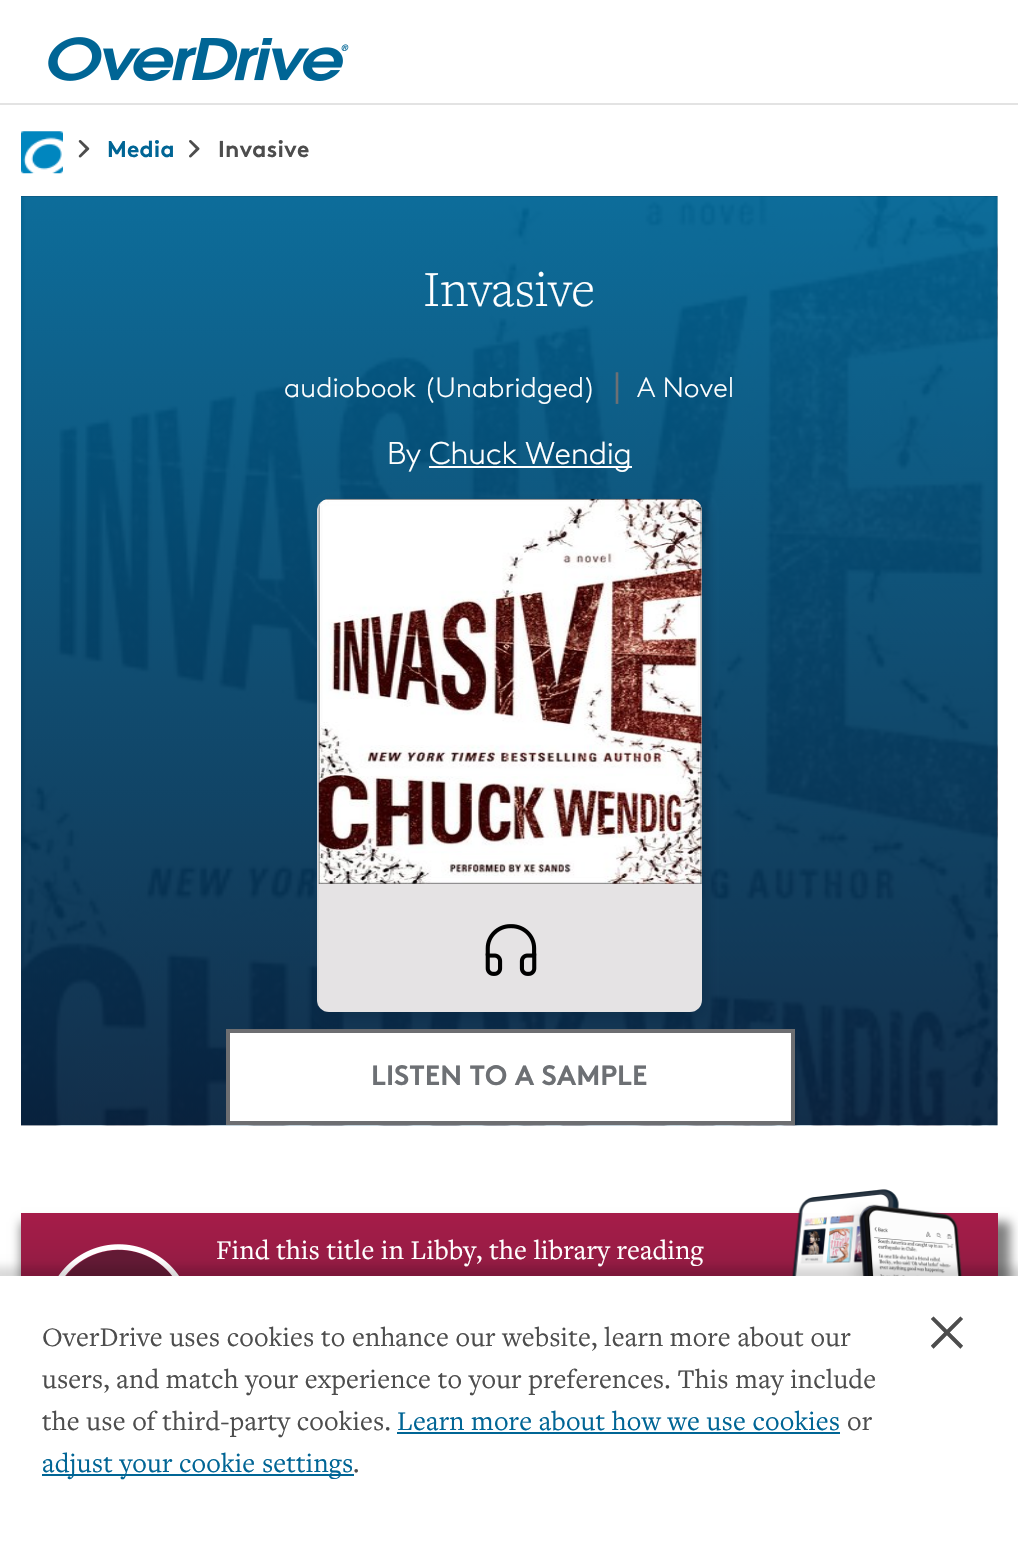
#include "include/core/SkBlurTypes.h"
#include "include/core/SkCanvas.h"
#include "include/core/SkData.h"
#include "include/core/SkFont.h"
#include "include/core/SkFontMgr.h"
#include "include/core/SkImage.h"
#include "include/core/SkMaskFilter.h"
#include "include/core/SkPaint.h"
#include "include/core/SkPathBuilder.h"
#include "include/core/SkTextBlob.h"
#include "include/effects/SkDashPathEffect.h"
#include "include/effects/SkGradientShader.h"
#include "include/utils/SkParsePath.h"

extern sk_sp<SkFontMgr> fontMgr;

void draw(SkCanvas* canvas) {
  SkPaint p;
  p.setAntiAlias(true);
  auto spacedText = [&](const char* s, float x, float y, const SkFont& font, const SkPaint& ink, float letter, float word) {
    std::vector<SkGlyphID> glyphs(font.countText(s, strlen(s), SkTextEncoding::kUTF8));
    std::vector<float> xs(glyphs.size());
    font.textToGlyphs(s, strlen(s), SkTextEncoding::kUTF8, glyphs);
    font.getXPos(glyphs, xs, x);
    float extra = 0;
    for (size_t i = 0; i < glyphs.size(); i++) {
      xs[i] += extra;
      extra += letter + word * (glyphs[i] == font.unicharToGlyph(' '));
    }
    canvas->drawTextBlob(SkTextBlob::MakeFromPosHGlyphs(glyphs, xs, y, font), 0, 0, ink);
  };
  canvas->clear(SK_ColorWHITE);
  p.setColor(SkColorSetRGB(227, 227, 227));
  canvas->drawRect(SkRect::MakeLTRB(0, 103, 1018, 105), p);
  canvas->drawImageRect(SkImages::DeferredFromEncodedData(SkData::MakeFromFileName("images/1.png")), SkRect::MakeLTRB(48, 37, 349, 81), SkSamplingOptions());
  canvas->drawImageRect(SkImages::DeferredFromEncodedData(SkData::MakeFromFileName("images/2.png")), SkRect::MakeLTRB(21, 131, 63, 174), SkSamplingOptions());
  canvas->drawImageRect(SkImages::DeferredFromEncodedData(SkData::MakeFromFileName("images/3.png")), SkRect::MakeLTRB(78, 140, 90, 158), SkSamplingOptions());
  canvas->drawImageRect(SkImages::DeferredFromEncodedData(SkData::MakeFromFileName("images/4.png")), SkRect::MakeLTRB(189, 140, 200, 158), SkSamplingOptions());
  canvas->drawImageRect(SkImages::DeferredFromEncodedData(SkData::MakeFromFileName("images/5.png")), SkRect::MakeLTRB(21, 196, 998, 1126), SkSamplingOptions());
  p.setColor(SK_ColorWHITE);
  canvas->drawRect(SkRect::MakeLTRB(429, 466, 632, 468), p);
  canvas->drawRect(SkRect::MakeLTRB(228, 1031, 793, 1123), p);
  p.setStyle(SkPaint::kStroke_Style);
  p.setStrokeWidth(4);
  p.setColor(SkColorSetRGB(109, 110, 113));
  canvas->drawRect(SkRect::MakeLTRB(228, 1031, 793, 1123), p);
  p.setStyle(SkPaint::kFill_Style);
  p.setColor(SkColorSetARGB(64, 6, 35, 64));
  p.setMaskFilter(SkMaskFilter::MakeBlur(kNormal_SkBlurStyle, 4.5f));
  canvas->drawRoundRect(SkRect::MakeLTRB(320, 502, 709, 1019), 14, 14, p);
  p.setMaskFilter(nullptr);
  p.setColor(SkColorSetRGB(229, 227, 228));
  canvas->drawRoundRect(SkRect::MakeLTRB(317, 499, 702, 1012), 12, 12, p);
  p.setColor(SkColorSetARGB(26, 167, 169, 172));
  canvas->drawRect(SkRect::MakeLTRB(317, 506, 319, 1006), p);
  canvas->drawImageRect(SkImages::DeferredFromEncodedData(SkData::MakeFromFileName("images/6.png")), SkRect::MakeLTRB(318, 498, 702, 884), SkSamplingOptions());
  canvas->drawImageRect(SkImages::DeferredFromEncodedData(SkData::MakeFromFileName("images/7.png")), SkRect::MakeLTRB(485, 924, 537, 976), SkSamplingOptions());
  p.setColor(SkColorSetRGB(128, 128, 128));
  p.setMaskFilter(SkMaskFilter::MakeBlur(kNormal_SkBlurStyle, 5));
  canvas->drawRect(SkRect::MakeLTRB(21, 1222, 1010, 1432), p);
  p.setMaskFilter(nullptr);
  {
    const SkColor colors[] = {SkColorSetRGB(166, 28, 73), SkColorSetRGB(99, 26, 53)};
    const float stops[] = {0, 1};
    const SkPoint ends[] = {{509, 1213}, {509, 1423}};
    p.setShader(SkGradientShader::MakeLinear(ends, colors, stops, 2, SkTileMode::kClamp));
    p.setAlpha(255);
  }
  canvas->drawRect(SkRect::MakeLTRB(21, 1213, 998, 1276), p);
  canvas->drawImageRect(SkImages::DeferredFromEncodedData(SkData::MakeFromFileName("images/8.png")), SkRect::MakeLTRB(58, 1244, 179, 1276), SkSamplingOptions());
  canvas->drawImageRect(SkImages::DeferredFromEncodedData(SkData::MakeFromFileName("images/9.png")), SkRect::MakeLTRB(792, 1189, 963, 1276), SkSamplingOptions());
  p.setShader(nullptr);
  p.setColor(SkColorSetARGB(38, 0, 0, 0));
  p.setMaskFilter(SkMaskFilter::MakeBlur(kNormal_SkBlurStyle, 4.5f));
  canvas->drawRect(SkRect::MakeLTRB(-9, 1267, 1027, 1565), p);
  p.setMaskFilter(nullptr);
  p.setColor(SK_ColorWHITE);
  canvas->drawRect(SkRect::MakeLTRB(0, 1276, 1018, 1555), p);
  p.setColor(SkColorSetRGB(0, 101, 149));
  canvas->drawRect(SkRect::MakeLTRB(397, 1432, 840, 1434), p);
  canvas->drawRect(SkRect::MakeLTRB(42, 1474, 354, 1476), p);
  SkFont font1(fontMgr->matchFamilyStyle("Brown", SkFontStyle::Bold()), 23);
  font1.setSubpixel(true);
  spacedText("Media", 107, 157, font1, p, 0.18f, 0);
  p.setColor(SkColorSetRGB(77, 77, 77));
  spacedText("Invasive", 218, 157, font1, p, 0.18f, 0);
  SkFont font2(fontMgr->matchFamilyStyle("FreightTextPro", SkFontStyle(300, SkFontStyle::kNormal_Width, SkFontStyle::kUpright_Slant)), 52.5f);
  font2.setSubpixel(true);
  p.setColor(SK_ColorWHITE);
  canvas->drawString("Invasive", 423, 306, font2, p);
  SkFont font3(fontMgr->matchFamilyStyle("Brown", SkFontStyle(300, SkFontStyle::kNormal_Width, SkFontStyle::kUpright_Slant)), 28);
  font3.setSubpixel(true);
  canvas->drawString("audiobook (Unabridged)", 284, 397, font3, p);
  SkFont font4(fontMgr->matchFamilyStyle("DejaVu Sans", SkFontStyle::Normal()), 32);
  font4.setSubpixel(true);
  p.setColor(SkColorSetRGB(109, 112, 116));
  canvas->drawString("∣", 609, 397, font4, p);
  p.setColor(SK_ColorWHITE);
  canvas->drawString("A Novel", 637, 397, font3, p);
  SkFont font5(fontMgr->matchFamilyStyle("Brown", SkFontStyle(300, SkFontStyle::kNormal_Width, SkFontStyle::kUpright_Slant)), 31.5f);
  font5.setSubpixel(true);
  spacedText("By", 387, 464, font5, p, -0.25f, 0);
  spacedText("Chuck Wendig", 429, 464, font5, p, -0.25f, 0);
  SkFont font6(fontMgr->matchFamilyStyle("Brown", SkFontStyle::Bold()), 28);
  font6.setSubpixel(true);
  p.setColor(SkColorSetRGB(109, 112, 116));
  canvas->drawString("LISTEN TO A SAMPLE", 371, 1085, font6, p);
  SkFont font7(fontMgr->matchFamilyStyle("FreightTextPro", SkFontStyle::Normal()), 28);
  font7.setSubpixel(true);
  p.setColor(SK_ColorWHITE);
  spacedText("Find this title in Libby, the library reading", 216, 1259, font7, p, 0.18f, 0);
  p.setColor(SkColorSetRGB(77, 77, 77));
  spacedText("OverDrive uses cookies to enhance our website, learn more about our", 42, 1346, font7, p, 0.18f, 0);
  spacedText("users, and match your experience to your preferences. This may include", 42, 1388, font7, p, 0.18f, 0);
  spacedText("the use of third-party cookies.", 42, 1430, font7, p, 0.18f, 0);
  p.setColor(SkColorSetRGB(0, 101, 149));
  spacedText("Learn more about how we use cookies", 397, 1430, font7, p, 0.18f, 0);
  p.setColor(SkColorSetRGB(77, 77, 77));
  spacedText("or", 847, 1430, font7, p, 0.18f, 0);
  p.setColor(SkColorSetRGB(0, 101, 149));
  spacedText("adjust your cookie settings", 42, 1472, font7, p, 0.18f, 0);
  p.setColor(SkColorSetRGB(77, 77, 77));
  spacedText(".", 353, 1472, font7, p, 0.18f, 0);
  SkFont font8(fontMgr->matchFamilyStyle("FreightTextPro", SkFontStyle::Normal()), 79);
  font8.setSubpixel(true);
  canvas->drawString("×", 928, 1351, font8, p);
}
